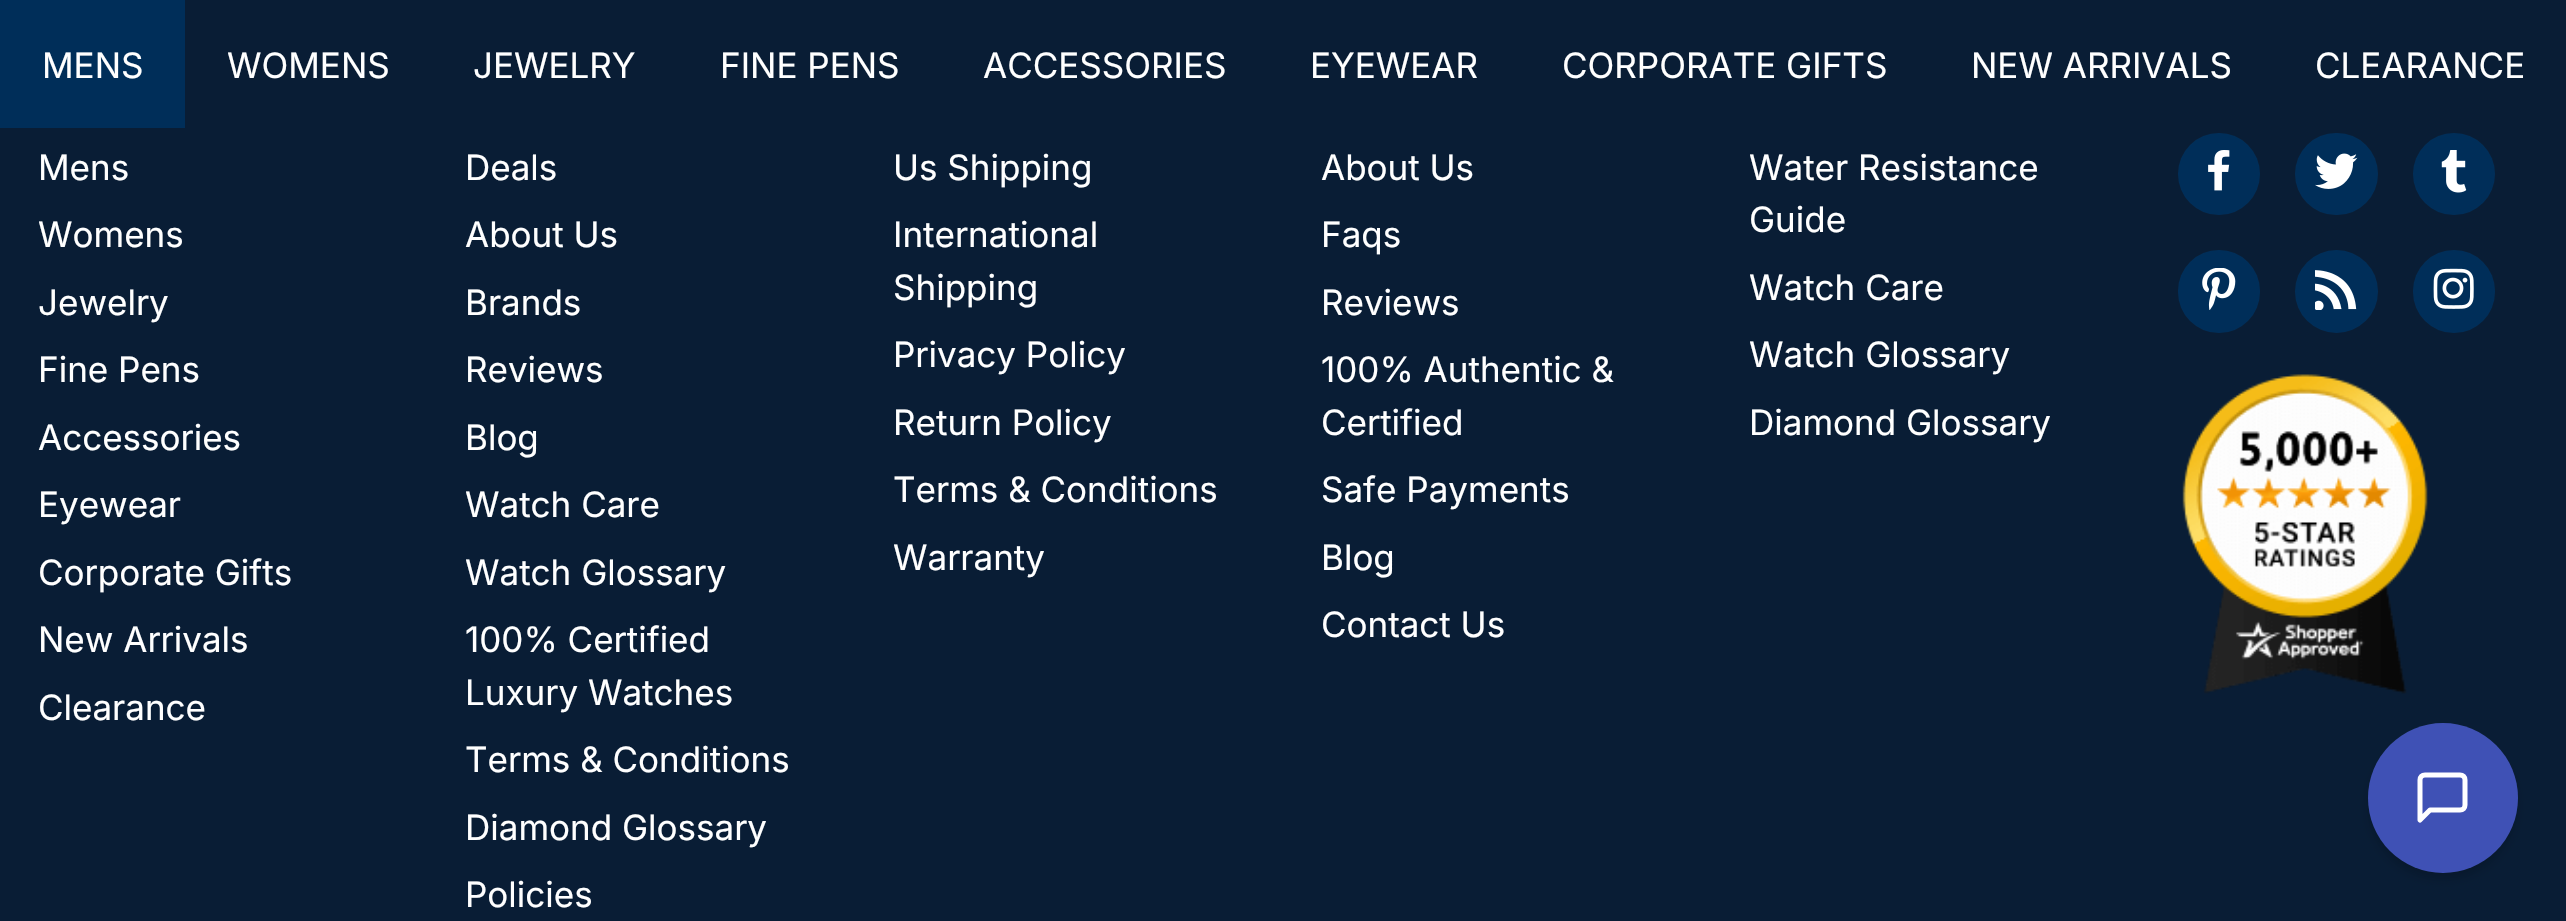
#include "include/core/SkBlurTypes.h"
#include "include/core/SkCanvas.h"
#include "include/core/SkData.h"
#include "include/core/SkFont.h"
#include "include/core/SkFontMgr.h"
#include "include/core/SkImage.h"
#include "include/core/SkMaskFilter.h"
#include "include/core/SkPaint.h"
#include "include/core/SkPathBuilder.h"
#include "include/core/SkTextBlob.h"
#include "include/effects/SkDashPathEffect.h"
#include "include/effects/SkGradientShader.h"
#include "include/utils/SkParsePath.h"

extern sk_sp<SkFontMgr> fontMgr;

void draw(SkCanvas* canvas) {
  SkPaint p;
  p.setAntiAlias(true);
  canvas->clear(SkColorSetRGB(9, 29, 53));
  p.setColor(SkColorSetRGB(0, 46, 89));
  canvas->drawRect(SkRect::MakeLTRB(0, 0, 185, 128), p);
  canvas->drawCircle(2219, 174, 41, p);
  canvas->drawImageRect(SkImages::DeferredFromEncodedData(SkData::MakeFromFileName("images/1.png")), SkRect::MakeLTRB(2208, 150, 2230, 191), SkSamplingOptions());
  canvas->drawRoundRect(SkRect::MakeLTRB(2295, 133, 2378, 215), 41, 41, p);
  canvas->drawImageRect(SkImages::DeferredFromEncodedData(SkData::MakeFromFileName("images/2.png")), SkRect::MakeLTRB(2315, 153, 2358, 189), SkSamplingOptions());
  canvas->drawCircle(2454, 174, 41, p);
  canvas->drawImageRect(SkImages::DeferredFromEncodedData(SkData::MakeFromFileName("images/3.png")), SkRect::MakeLTRB(2441, 150, 2467, 193), SkSamplingOptions());
  canvas->drawRoundRect(SkRect::MakeLTRB(2178, 250, 2260, 333), 41, 41, p);
  canvas->drawImageRect(SkImages::DeferredFromEncodedData(SkData::MakeFromFileName("images/4.png")), SkRect::MakeLTRB(2202, 268, 2236, 310), SkSamplingOptions());
  canvas->drawCircle(2336.5f, 291.5f, 41.5f, p);
  canvas->drawImageRect(SkImages::DeferredFromEncodedData(SkData::MakeFromFileName("images/5.png")), SkRect::MakeLTRB(2315, 270, 2357, 310), SkSamplingOptions());
  canvas->drawRoundRect(SkRect::MakeLTRB(2413, 250, 2495, 333), 41, 41, p);
  canvas->drawImageRect(SkImages::DeferredFromEncodedData(SkData::MakeFromFileName("images/6.png")), SkRect::MakeLTRB(2433, 268, 2474, 309), SkSamplingOptions());
  canvas->drawImageRect(SkImages::DeferredFromEncodedData(SkData::MakeFromFileName("images/7.png")), SkRect::MakeLTRB(2182, 374, 2428, 694), SkSamplingOptions());
  p.setColor(SkColorSetARGB(51, 0, 0, 0));
  p.setMaskFilter(SkMaskFilter::MakeBlur(kNormal_SkBlurStyle, 6));
  canvas->drawRoundRect(SkRect::MakeLTRB(2370, 733, 2515, 878), 72.5f, 72.5f, p);
  p.setMaskFilter(nullptr);
  p.setColor(SkColorSetRGB(63, 81, 181));
  canvas->drawCircle(2443, 798, 75, p);
  p.setStyle(SkPaint::kStroke_Style);
  p.setStrokeWidth(5);
  p.setStrokeCap(SkPaint::kRound_Cap);
  p.setStrokeJoin(SkPaint::kRound_Join);
  p.setColor(SK_ColorWHITE);
  canvas->drawPath(SkPathBuilder().moveTo(2465, 805).cubicTo(2465, 808, 2463, 810, 2460, 810).lineTo(2430, 810).lineTo(2420, 820).lineTo(2420, 780).cubicTo(2420, 777, 2422, 775, 2425, 775).lineTo(2460, 775).cubicTo(2463, 775, 2465, 777, 2465, 780).close().detach(), p);
  SkFont font1(fontMgr->matchFamilyStyle("Inter", SkFontStyle::Normal()), 35);
  font1.setSubpixel(true);
  p.setStyle(SkPaint::kFill_Style);
  canvas->drawString("MENS", 42, 78, font1, p);
  canvas->drawString("WOMENS", 227, 78, font1, p);
  canvas->drawString("JEWELRY", 473, 78, font1, p);
  canvas->drawString("FINE PENS", 720, 78, font1, p);
  canvas->drawString("ACCESSORIES", 983, 78, font1, p);
  canvas->drawString("EYEWEAR", 1310, 78, font1, p);
  canvas->drawString("CORPORATE GIFTS", 1562, 78, font1, p);
  canvas->drawString("NEW ARRIVALS", 1971, 78, font1, p);
  canvas->drawString("CLEARANCE", 2315, 78, font1, p);
  canvas->drawString("Mens", 38, 180, font1, p);
  canvas->drawString("Womens", 38, 247, font1, p);
  canvas->drawString("Jewelry", 38, 315, font1, p);
  canvas->drawString("Fine Pens", 38, 382, font1, p);
  canvas->drawString("Accessories", 38, 450, font1, p);
  canvas->drawString("Eyewear", 38, 517, font1, p);
  canvas->drawString("Corporate Gifts", 38, 585, font1, p);
  canvas->drawString("New Arrivals", 38, 652, font1, p);
  canvas->drawString("Clearance", 38, 720, font1, p);
  canvas->drawString("Deals", 465, 180, font1, p);
  canvas->drawString("About Us", 465, 247, font1, p);
  canvas->drawString("Brands", 465, 315, font1, p);
  canvas->drawString("Reviews", 465, 382, font1, p);
  canvas->drawString("Blog", 465, 450, font1, p);
  canvas->drawString("Watch Care", 465, 517, font1, p);
  canvas->drawString("Watch Glossary", 465, 585, font1, p);
  canvas->drawString("100% Certified", 465, 652, font1, p);
  canvas->drawString("Luxury Watches", 465, 705, font1, p);
  canvas->drawString("Terms & Conditions", 465, 772, font1, p);
  canvas->drawString("Diamond Glossary", 465, 840, font1, p);
  canvas->drawString("Policies", 465, 907, font1, p);
  canvas->drawString("Us Shipping", 893, 180, font1, p);
  canvas->drawString("International", 893, 247, font1, p);
  canvas->drawString("Shipping", 893, 300, font1, p);
  canvas->drawString("Privacy Policy", 893, 367, font1, p);
  canvas->drawString("Return Policy", 893, 435, font1, p);
  canvas->drawString("Terms & Conditions", 893, 502, font1, p);
  canvas->drawString("Warranty", 893, 570, font1, p);
  canvas->drawString("About Us", 1321, 180, font1, p);
  canvas->drawString("Faqs", 1321, 247, font1, p);
  canvas->drawString("Reviews", 1321, 315, font1, p);
  canvas->drawString("100% Authentic &", 1321, 382, font1, p);
  canvas->drawString("Certified", 1321, 435, font1, p);
  canvas->drawString("Safe Payments", 1321, 502, font1, p);
  canvas->drawString("Blog", 1321, 570, font1, p);
  canvas->drawString("Contact Us", 1321, 637, font1, p);
  canvas->drawString("Water Resistance", 1749, 180, font1, p);
  canvas->drawString("Guide", 1749, 232, font1, p);
  canvas->drawString("Watch Care", 1749, 300, font1, p);
  canvas->drawString("Watch Glossary", 1749, 367, font1, p);
  canvas->drawString("Diamond Glossary", 1749, 435, font1, p);
}
